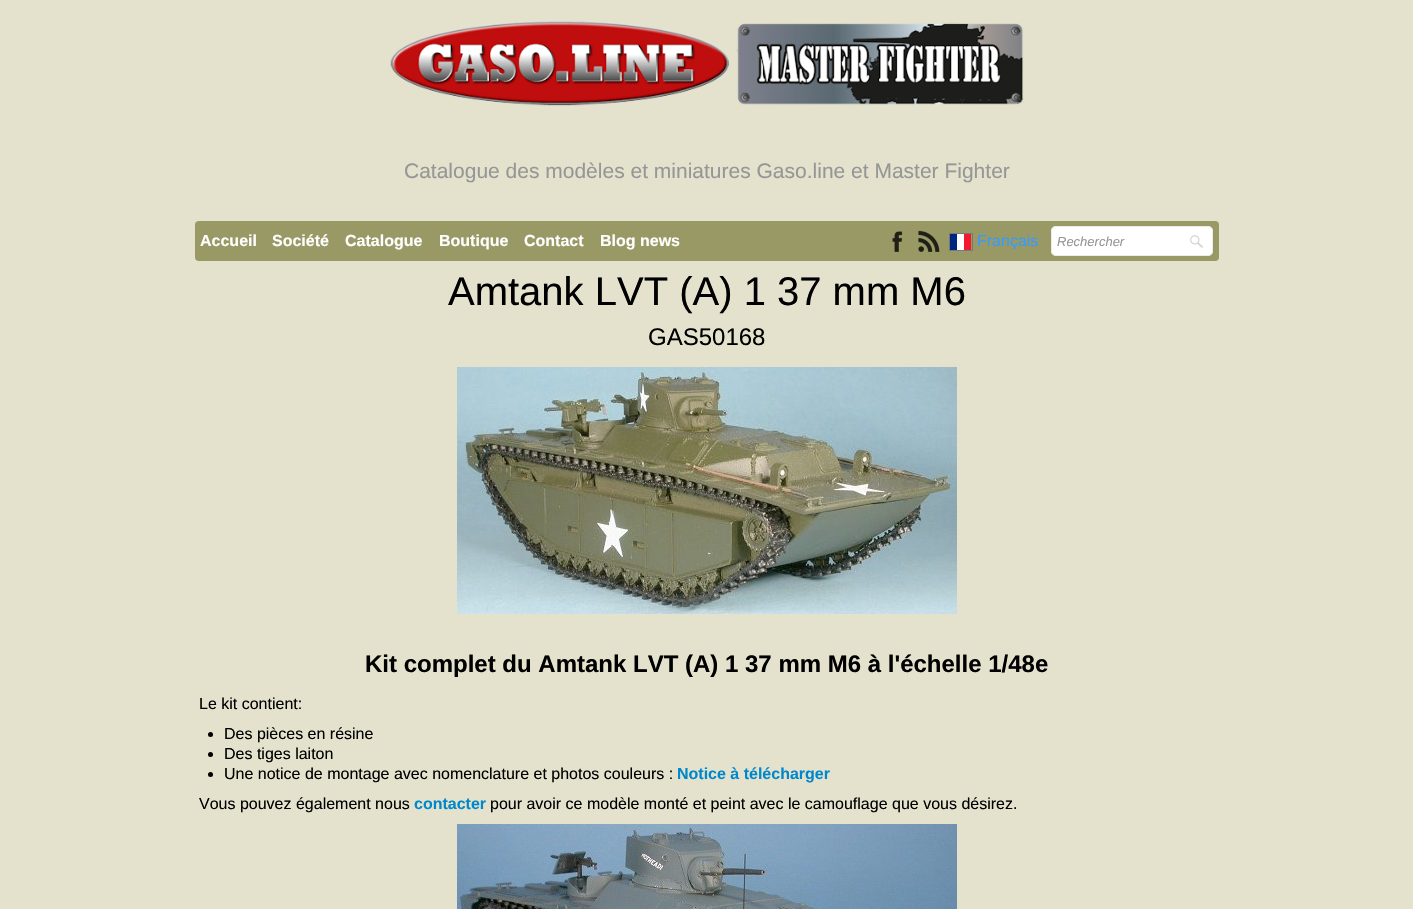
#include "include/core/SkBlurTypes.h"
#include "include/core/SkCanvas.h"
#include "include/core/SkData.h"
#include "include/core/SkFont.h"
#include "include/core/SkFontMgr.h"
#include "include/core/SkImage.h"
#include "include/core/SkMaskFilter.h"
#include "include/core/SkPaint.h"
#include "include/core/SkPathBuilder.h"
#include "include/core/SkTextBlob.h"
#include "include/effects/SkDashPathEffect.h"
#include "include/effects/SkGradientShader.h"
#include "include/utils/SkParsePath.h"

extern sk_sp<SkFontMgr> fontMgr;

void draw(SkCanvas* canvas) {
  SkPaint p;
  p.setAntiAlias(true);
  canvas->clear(SkColorSetRGB(228, 226, 205));
  canvas->drawImageRect(SkImages::DeferredFromEncodedData(SkData::MakeFromFileName("images/1.png")), SkRect::MakeLTRB(390, 21, 1024, 106), SkSamplingOptions());
  p.setColor(SkColorSetRGB(153, 153, 102));
  canvas->drawRoundRect(SkRect::MakeLTRB(195, 221, 1219, 261), 4, 4, p);
  canvas->drawImageRect(SkImages::DeferredFromEncodedData(SkData::MakeFromFileName("images/2.png")), SkRect::MakeLTRB(892, 231, 903, 252), SkSamplingOptions());
  canvas->drawImageRect(SkImages::DeferredFromEncodedData(SkData::MakeFromFileName("images/3.png")), SkRect::MakeLTRB(918, 230, 940, 252), SkSamplingOptions());
  p.setStyle(SkPaint::kStroke_Style);
  p.setStrokeWidth(1);
  p.setColor(SkColorSetRGB(120, 120, 120));
  canvas->drawRect(SkRect::MakeLTRB(949.5f, 233.5f, 972.5f, 250.5f), p);
  p.setStyle(SkPaint::kFill_Style);
  p.setColor(SK_ColorWHITE);
  canvas->drawRect(SkRect::MakeLTRB(957, 234, 964, 250), p);
  p.setColor(SkColorSetRGB(0, 38, 127));
  canvas->drawRect(SkRect::MakeLTRB(950, 234, 957, 250), p);
  p.setColor(SkColorSetRGB(243, 24, 48));
  canvas->drawRect(SkRect::MakeLTRB(964, 234, 971, 250), p);
  p.setColor(SK_ColorWHITE);
  canvas->drawRoundRect(SkRect::MakeLTRB(1051, 226, 1213, 256), 5, 5, p);
  canvas->drawImageRect(SkImages::DeferredFromEncodedData(SkData::MakeFromFileName("images/4.png")), SkRect::MakeLTRB(1190, 235, 1203, 248), SkSamplingOptions());
  p.setStyle(SkPaint::kStroke_Style);
  p.setColor(SkColorSetRGB(235, 235, 235));
  canvas->drawRoundRect(SkRect::MakeLTRB(1051.5f, 226.5f, 1212.5f, 255.5f), 4.5f, 4.5f, p);
  canvas->drawImageRect(SkImages::DeferredFromEncodedData(SkData::MakeFromFileName("images/5.png")), SkRect::MakeLTRB(457, 367, 957, 614), SkSamplingOptions());
  p.setStyle(SkPaint::kFill_Style);
  p.setColor(SK_ColorBLACK);
  canvas->drawCircle(210.5f, 734.5f, 2.5f, p);
  canvas->drawCircle(210.5f, 754.5f, 2.5f, p);
  canvas->drawCircle(210.5f, 774.5f, 2.5f, p);
  canvas->drawImageRect(SkImages::DeferredFromEncodedData(SkData::MakeFromFileName("images/6.png")), SkRect::MakeLTRB(457, 824, 957, 909), SkSamplingOptions());
  SkFont font1(fontMgr->matchFamilyStyle("Liberation Sans", SkFontStyle::Normal()), 21);
  font1.setSubpixel(true);
  p.setColor(SkColorSetRGB(150, 150, 150));
  canvas->drawString("Catalogue des modèles et miniatures Gaso.line et Master Fighter", 404, 178, font1, p);
  SkFont font2(fontMgr->matchFamilyStyle("Liberation Sans", SkFontStyle::Bold()), 16);
  font2.setSubpixel(true);
  p.setColor(SK_ColorWHITE);
  canvas->drawString("Accueil", 200, 246, font2, p);
  canvas->drawString("Société", 272, 246, font2, p);
  canvas->drawString("Catalogue", 345, 246, font2, p);
  canvas->drawString("Boutique", 439, 246, font2, p);
  canvas->drawString("Contact", 524, 246, font2, p);
  canvas->drawString("Blog news", 600, 246, font2, p);
  SkFont font3(fontMgr->matchFamilyStyle("Liberation Sans", SkFontStyle::Normal()), 16);
  font3.setSubpixel(true);
  p.setColor(SkColorSetRGB(51, 156, 255));
  canvas->drawString("Français", 977, 246, font3, p);
  SkFont font4(fontMgr->matchFamilyStyle("Liberation Sans", SkFontStyle::Italic()), 13);
  font4.setSubpixel(true);
  p.setColor(SkColorSetRGB(150, 150, 150));
  canvas->drawString("Rechercher", 1057, 246, font4, p);
  SkFont font5(fontMgr->matchFamilyStyle("Liberation Sans", SkFontStyle::Normal()), 40);
  font5.setSubpixel(true);
  p.setColor(SK_ColorBLACK);
  canvas->drawString("Amtank LVT (A) 1 37 mm M6", 448, 305, font5, p);
  SkFont font6(fontMgr->matchFamilyStyle("Liberation Sans", SkFontStyle::Normal()), 24);
  font6.setSubpixel(true);
  canvas->drawString("GAS50168", 648, 345, font6, p);
  SkFont font7(fontMgr->matchFamilyStyle("Liberation Sans", SkFontStyle::Bold()), 24);
  font7.setSubpixel(true);
  canvas->drawString("Kit complet du Amtank LVT (A) 1 37 mm M6 à l'échelle 1/48e", 365, 672, font7, p);
  canvas->drawString("Le kit contient:", 199, 709, font3, p);
  canvas->drawString("Des pièces en résine", 224, 739, font3, p);
  canvas->drawString("Des tiges laiton", 224, 759, font3, p);
  canvas->drawString("Une notice de montage avec nomenclature et photos couleurs :", 224, 779, font3, p);
  p.setColor(SkColorSetRGB(0, 136, 204));
  canvas->drawString("Notice à télécharger", 677, 779, font2, p);
  p.setColor(SK_ColorBLACK);
  canvas->drawString("Vous pouvez également nous", 199, 809, font3, p);
  p.setColor(SkColorSetRGB(0, 136, 204));
  canvas->drawString("contacter", 414, 809, font2, p);
  p.setColor(SK_ColorBLACK);
  canvas->drawString("pour avoir ce modèle monté et peint avec le camouflage que vous désirez.", 490, 809, font3, p);
}
